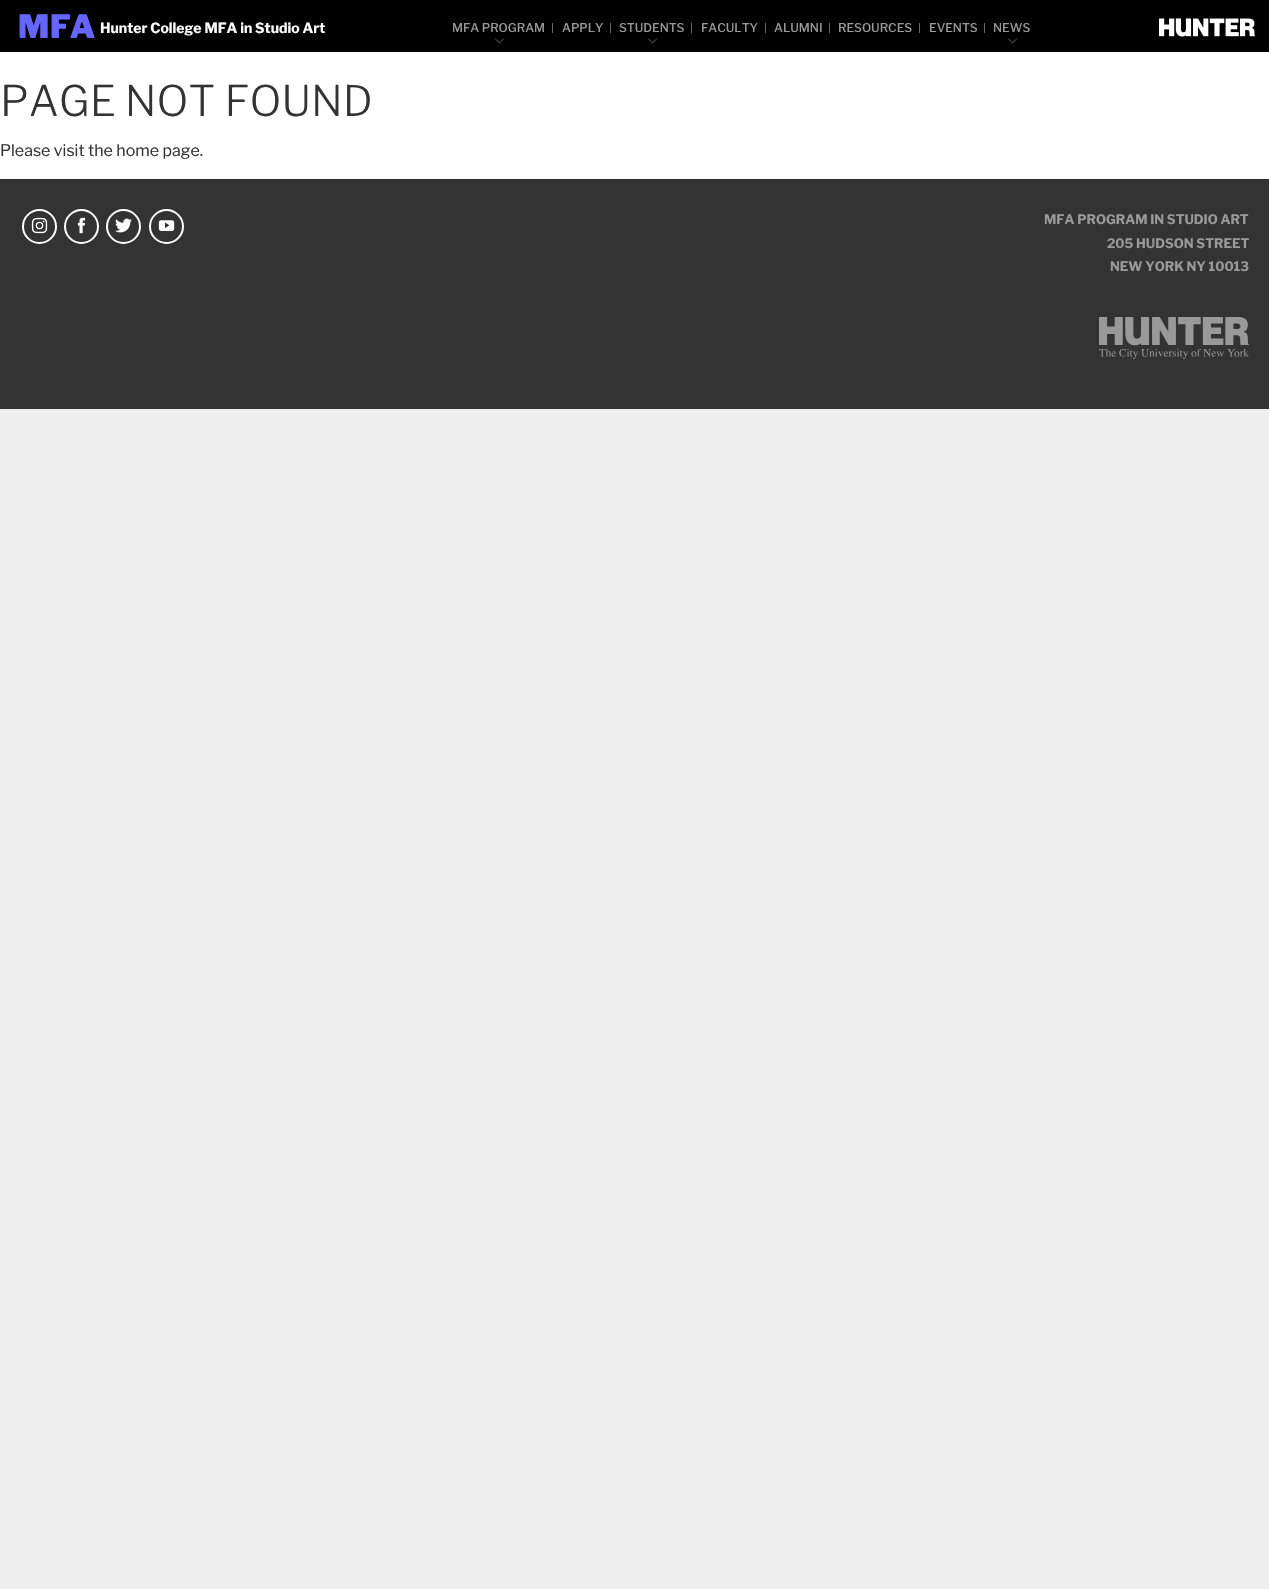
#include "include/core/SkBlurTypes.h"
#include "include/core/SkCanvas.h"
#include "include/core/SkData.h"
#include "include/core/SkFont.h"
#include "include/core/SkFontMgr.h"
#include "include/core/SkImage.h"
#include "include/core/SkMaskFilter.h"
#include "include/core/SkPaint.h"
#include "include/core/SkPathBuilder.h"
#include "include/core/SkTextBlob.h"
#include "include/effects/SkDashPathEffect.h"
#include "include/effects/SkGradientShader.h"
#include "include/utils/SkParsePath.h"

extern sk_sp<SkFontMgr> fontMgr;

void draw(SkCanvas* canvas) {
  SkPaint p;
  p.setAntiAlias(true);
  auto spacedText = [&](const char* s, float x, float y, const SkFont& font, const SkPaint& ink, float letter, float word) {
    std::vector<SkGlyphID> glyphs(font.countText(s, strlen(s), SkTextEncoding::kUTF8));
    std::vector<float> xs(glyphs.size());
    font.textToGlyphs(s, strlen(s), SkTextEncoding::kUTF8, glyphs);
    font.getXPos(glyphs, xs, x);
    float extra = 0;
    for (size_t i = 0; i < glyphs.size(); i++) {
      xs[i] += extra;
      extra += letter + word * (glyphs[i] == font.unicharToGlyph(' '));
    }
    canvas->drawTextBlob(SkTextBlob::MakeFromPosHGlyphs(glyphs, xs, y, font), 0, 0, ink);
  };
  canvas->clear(SkColorSetRGB(238, 238, 238));
  p.setColor(SK_ColorBLACK);
  canvas->drawRect(SkRect::MakeLTRB(0, 0, 1269, 52), p);
  p.setColor(SkColorSetRGB(102, 102, 102));
  canvas->drawRect(SkRect::MakeLTRB(552, 23, 553, 33), p);
  p.setStyle(SkPaint::kStroke_Style);
  p.setStrokeWidth(0.7f);
  p.setColor(SkColorSetRGB(136, 136, 136));
  canvas->drawPath(SkPathBuilder().moveTo(495, 38.5f).lineTo(499.5f, 43).lineTo(504, 38.5f).detach(), p);
  p.setStyle(SkPaint::kFill_Style);
  p.setColor(SkColorSetRGB(102, 102, 102));
  canvas->drawRect(SkRect::MakeLTRB(610, 23, 611, 33), p);
  canvas->drawRect(SkRect::MakeLTRB(691, 23, 692, 33), p);
  p.setStyle(SkPaint::kStroke_Style);
  p.setColor(SkColorSetRGB(136, 136, 136));
  canvas->drawPath(SkPathBuilder().moveTo(648, 38.5f).lineTo(652.5f, 43).lineTo(657, 38.5f).detach(), p);
  p.setStyle(SkPaint::kFill_Style);
  p.setColor(SkColorSetRGB(102, 102, 102));
  canvas->drawRect(SkRect::MakeLTRB(765, 23, 766, 33), p);
  canvas->drawRect(SkRect::MakeLTRB(829, 23, 830, 33), p);
  canvas->drawRect(SkRect::MakeLTRB(919, 23, 920, 33), p);
  canvas->drawRect(SkRect::MakeLTRB(984, 23, 985, 33), p);
  p.setStyle(SkPaint::kStroke_Style);
  p.setColor(SkColorSetRGB(136, 136, 136));
  canvas->drawPath(SkPathBuilder().moveTo(1008, 38.5f).lineTo(1012.5f, 43).lineTo(1017, 38.5f).detach(), p);
  canvas->drawImageRect(SkImages::DeferredFromEncodedData(SkData::MakeFromFileName("images/1.png")), SkRect::MakeLTRB(1159, 18, 1255, 37), SkSamplingOptions());
  p.setStyle(SkPaint::kFill_Style);
  p.setColor(SK_ColorWHITE);
  canvas->drawRect(SkRect::MakeLTRB(0, 52, 1269, 179), p);
  p.setColor(SkColorSetRGB(51, 51, 51));
  canvas->drawRect(SkRect::MakeLTRB(0, 179, 1269, 409), p);
  p.setStyle(SkPaint::kStroke_Style);
  p.setStrokeWidth(2);
  p.setColor(SkColorSetRGB(254, 254, 254));
  canvas->drawCircle(39.5f, 226.5f, 16.5f, p);
  canvas->drawImageRect(SkImages::DeferredFromEncodedData(SkData::MakeFromFileName("images/2.png")), SkRect::MakeLTRB(31, 217, 48, 234), SkSamplingOptions());
  canvas->drawCircle(81.5f, 226.5f, 16.5f, p);
  canvas->drawImageRect(SkImages::DeferredFromEncodedData(SkData::MakeFromFileName("images/3.png")), SkRect::MakeLTRB(77, 217, 86, 234), SkSamplingOptions());
  canvas->drawCircle(123.5f, 226.5f, 16.5f, p);
  canvas->drawImageRect(SkImages::DeferredFromEncodedData(SkData::MakeFromFileName("images/4.png")), SkRect::MakeLTRB(115, 218, 132, 233), SkSamplingOptions());
  canvas->drawCircle(166.5f, 226.5f, 16.5f, p);
  canvas->drawImageRect(SkImages::DeferredFromEncodedData(SkData::MakeFromFileName("images/5.png")), SkRect::MakeLTRB(158, 220, 175, 231), SkSamplingOptions());
  canvas->drawImageRect(SkImages::DeferredFromEncodedData(SkData::MakeFromFileName("images/6.png")), SkRect::MakeLTRB(1099, 317, 1249, 359), SkSamplingOptions());
  SkFont font1(fontMgr->matchFamilyStyle("Libre Franklin", SkFontStyle(900, SkFontStyle::kNormal_Width, SkFontStyle::kUpright_Slant)), 32);
  font1.setSubpixel(true);
  p.setStyle(SkPaint::kFill_Style);
  p.setColor(SkColorSetRGB(101, 101, 255));
  canvas->drawString("M", 18, 38, font1, p);
  spacedText("FA", 50, 38, font1, p, -1, 0);
  SkFont font2(fontMgr->matchFamilyStyle("Libre Franklin", SkFontStyle::Bold()), 14);
  font2.setSubpixel(true);
  p.setColor(SkColorSetRGB(254, 254, 254));
  canvas->drawString("Hunter College MFA in Studio Art", 100, 33, font2, p);
  SkFont font3(fontMgr->matchFamilyStyle("Libre Franklin", SkFontStyle(500, SkFontStyle::kNormal_Width, SkFontStyle::kUpright_Slant)), 12);
  font3.setSubpixel(true);
  p.setColor(SkColorSetRGB(153, 153, 153));
  canvas->drawString("MFA PROGRAM", 452, 32, font3, p);
  canvas->drawString("APPLY", 562, 32, font3, p);
  canvas->drawString("STUDENTS", 619, 32, font3, p);
  canvas->drawString("FACULTY", 701, 32, font3, p);
  canvas->drawString("ALUMNI", 774, 32, font3, p);
  canvas->drawString("RESOURCES", 838, 32, font3, p);
  canvas->drawString("EVENTS", 929, 32, font3, p);
  canvas->drawString("NEWS", 993, 32, font3, p);
  SkFont font4(fontMgr->matchFamilyStyle("Libre Franklin", SkFontStyle(300, SkFontStyle::kNormal_Width, SkFontStyle::kUpright_Slant)), 42);
  font4.setSubpixel(true);
  p.setColor(SkColorSetRGB(51, 51, 51));
  canvas->drawString("PAGE NOT FOUND", 0, 116, font4, p);
  SkFont font5(fontMgr->matchFamilyStyle("Libre Franklin", SkFontStyle::Normal()), 16);
  font5.setSubpixel(true);
  canvas->drawString("Please visit the home page.", 0, 156, font5, p);
  SkFont font6(fontMgr->matchFamilyStyle("Libre Franklin", SkFontStyle::Bold()), 13);
  font6.setSubpixel(true);
  p.setColor(SkColorSetRGB(153, 153, 153));
  canvas->drawString("MFA PROGRAM IN STUDIO ART", 1044, 224, font6, p);
  canvas->drawString("205 HUDSON STREET", 1107, 248, font6, p);
  canvas->drawString("NEW YORK NY 10013", 1110, 271, font6, p);
}
